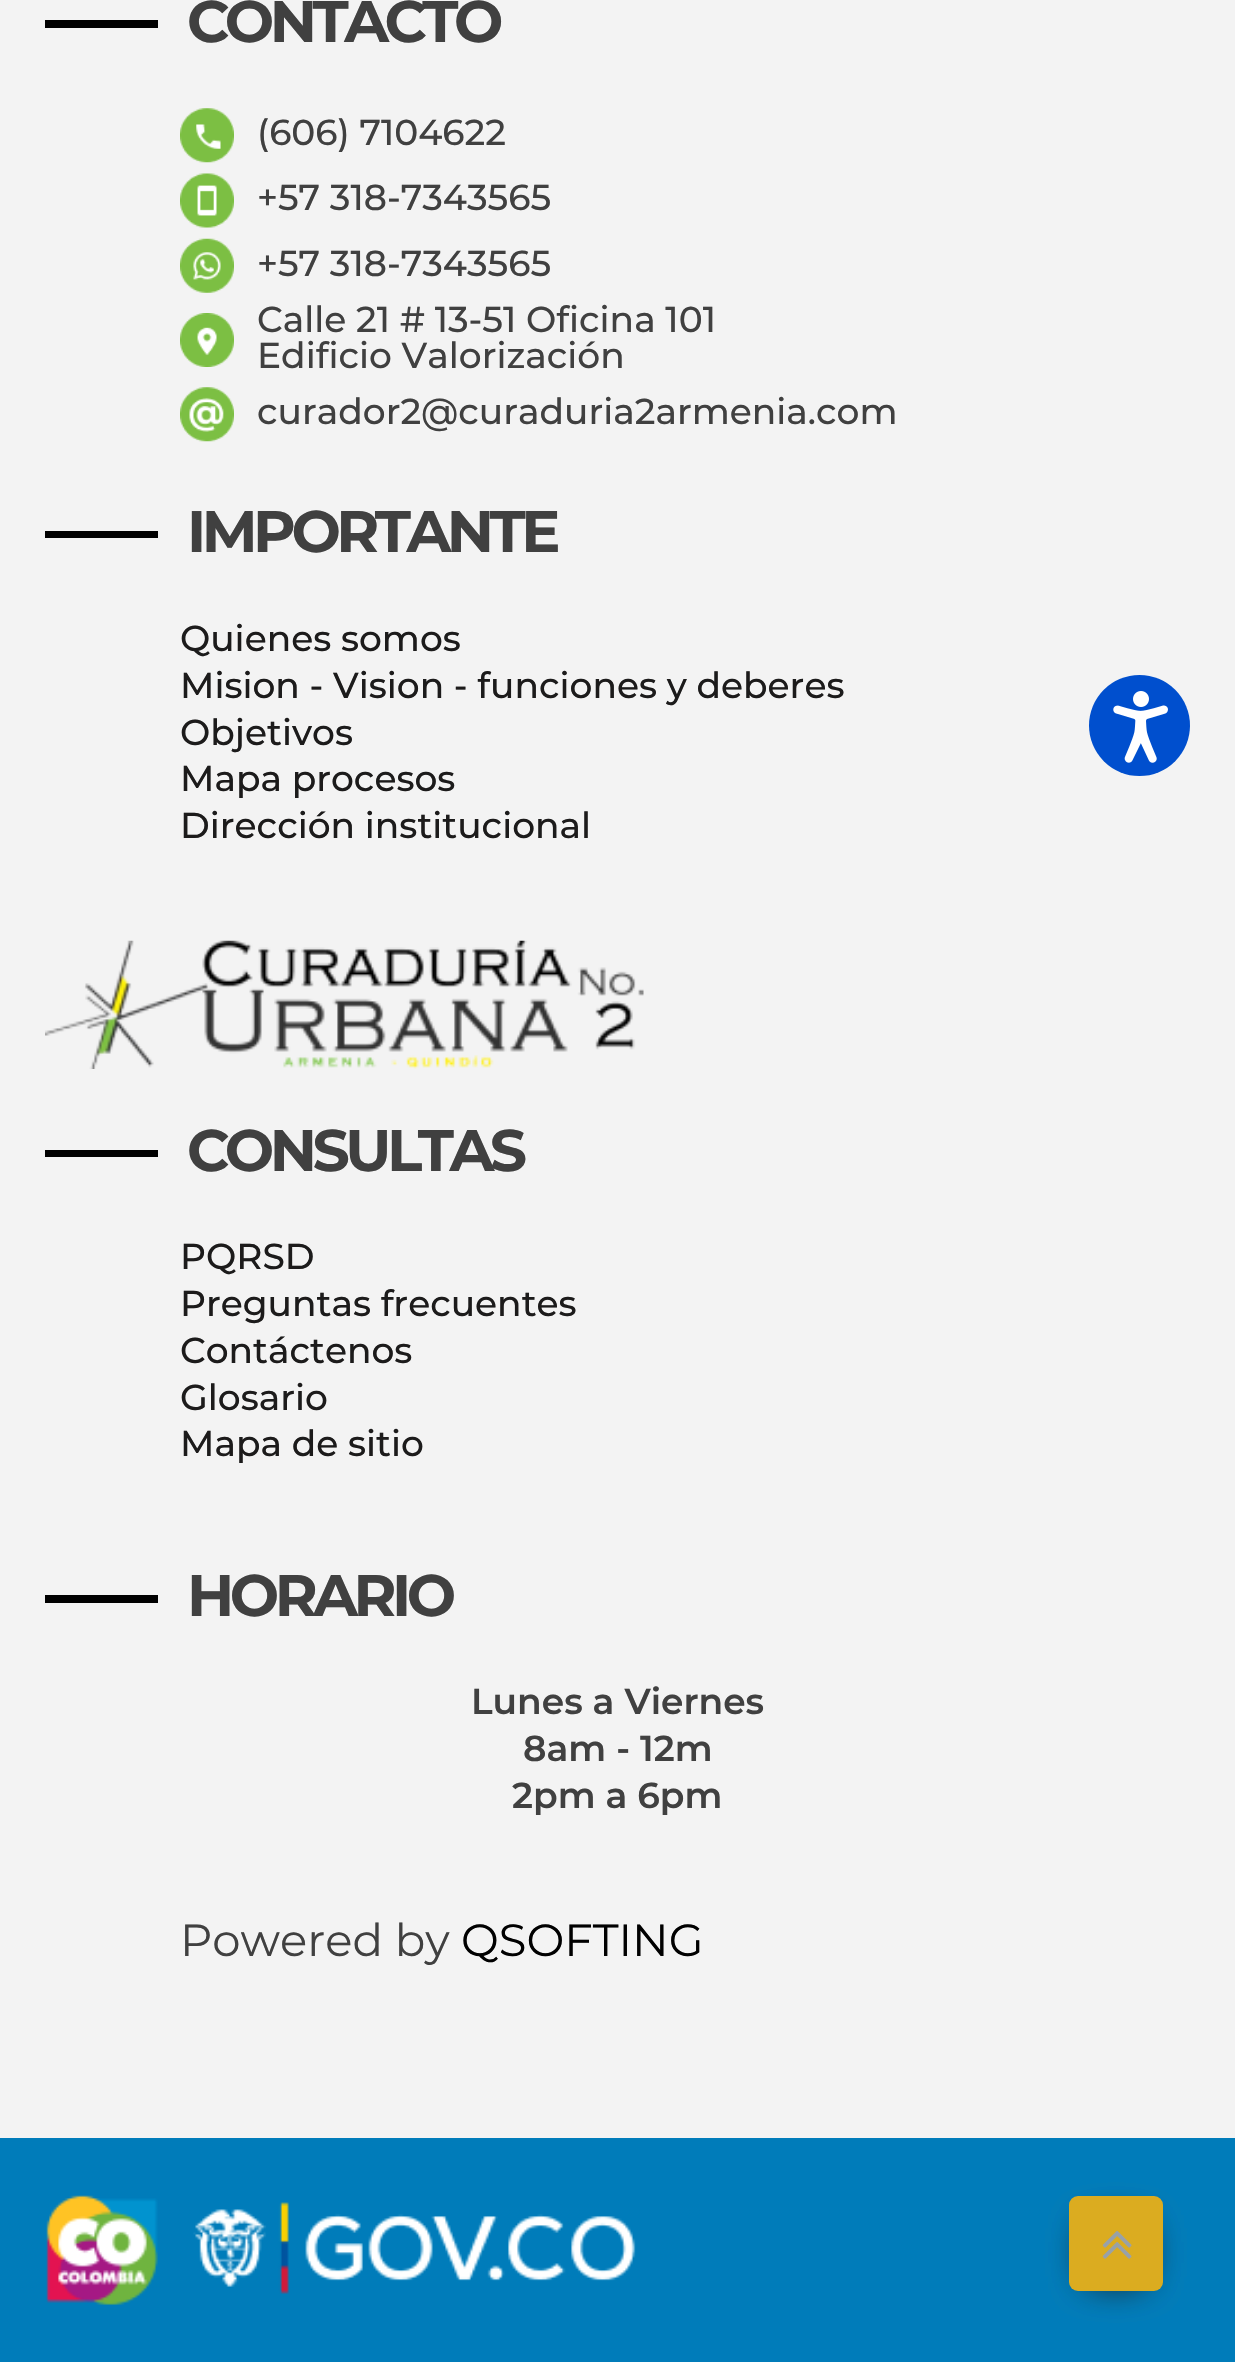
#include "include/core/SkBlurTypes.h"
#include "include/core/SkCanvas.h"
#include "include/core/SkData.h"
#include "include/core/SkFont.h"
#include "include/core/SkFontMgr.h"
#include "include/core/SkImage.h"
#include "include/core/SkMaskFilter.h"
#include "include/core/SkPaint.h"
#include "include/core/SkPathBuilder.h"
#include "include/core/SkTextBlob.h"
#include "include/effects/SkDashPathEffect.h"
#include "include/effects/SkGradientShader.h"
#include "include/utils/SkParsePath.h"

extern sk_sp<SkFontMgr> fontMgr;

void draw(SkCanvas* canvas) {
  SkPaint p;
  p.setAntiAlias(true);
  auto spacedText = [&](const char* s, float x, float y, const SkFont& font, const SkPaint& ink, float letter, float word) {
    std::vector<SkGlyphID> glyphs(font.countText(s, strlen(s), SkTextEncoding::kUTF8));
    std::vector<float> xs(glyphs.size());
    font.textToGlyphs(s, strlen(s), SkTextEncoding::kUTF8, glyphs);
    font.getXPos(glyphs, xs, x);
    float extra = 0;
    for (size_t i = 0; i < glyphs.size(); i++) {
      xs[i] += extra;
      extra += letter + word * (glyphs[i] == font.unicharToGlyph(' '));
    }
    canvas->drawTextBlob(SkTextBlob::MakeFromPosHGlyphs(glyphs, xs, y, font), 0, 0, ink);
  };
  canvas->clear(SkColorSetRGB(243, 243, 243));
  p.setColor(SK_ColorBLACK);
  canvas->drawRect(SkRect::MakeLTRB(45, 20, 158, 28), p);
  canvas->drawImageRect(SkImages::DeferredFromEncodedData(SkData::MakeFromFileName("images/1.png")), SkRect::MakeLTRB(180, 108, 234, 163), SkSamplingOptions());
  canvas->drawImageRect(SkImages::DeferredFromEncodedData(SkData::MakeFromFileName("images/2.png")), SkRect::MakeLTRB(180, 173, 234, 228), SkSamplingOptions());
  canvas->drawImageRect(SkImages::DeferredFromEncodedData(SkData::MakeFromFileName("images/3.png")), SkRect::MakeLTRB(180, 238, 234, 293), SkSamplingOptions());
  canvas->drawImageRect(SkImages::DeferredFromEncodedData(SkData::MakeFromFileName("images/4.png")), SkRect::MakeLTRB(180, 313, 234, 367), SkSamplingOptions());
  canvas->drawImageRect(SkImages::DeferredFromEncodedData(SkData::MakeFromFileName("images/5.png")), SkRect::MakeLTRB(180, 387, 234, 442), SkSamplingOptions());
  canvas->drawRect(SkRect::MakeLTRB(45, 531, 158, 538), p);
  canvas->drawImageRect(SkImages::DeferredFromEncodedData(SkData::MakeFromFileName("images/6.png")), SkRect::MakeLTRB(45, 940, 644, 1069), SkSamplingOptions());
  canvas->drawRect(SkRect::MakeLTRB(45, 1150, 158, 1157), p);
  p.setColor(SkColorSetRGB(0, 124, 186));
  canvas->drawRect(SkRect::MakeLTRB(0, 2138, 1235, 2362), p);
  p.setColor(SkColorSetRGB(30, 30, 30));
  p.setMaskFilter(SkMaskFilter::MakeBlur(kNormal_SkBlurStyle, 19));
  canvas->drawRect(SkRect::MakeLTRB(1091, 2228, 1141, 2277), p);
  p.setMaskFilter(nullptr);
  p.setColor(SK_ColorBLACK);
  canvas->drawRect(SkRect::MakeLTRB(45, 1595, 158, 1603), p);
  p.setColor(SkColorSetRGB(30, 30, 30));
  p.setMaskFilter(SkMaskFilter::MakeBlur(kNormal_SkBlurStyle, 19));
  canvas->drawRect(SkRect::MakeLTRB(1091, 2228, 1141, 2277), p);
  p.setMaskFilter(nullptr);
  p.setColor(SkColorSetRGB(219, 172, 32));
  canvas->drawRoundRect(SkRect::MakeLTRB(1069, 2196, 1163, 2291), 9, 9, p);
  canvas->drawImageRect(SkImages::DeferredFromEncodedData(SkData::MakeFromFileName("images/7.png")), SkRect::MakeLTRB(1102, 2231, 1132, 2259), SkSamplingOptions());
  canvas->drawImageRect(SkImages::DeferredFromEncodedData(SkData::MakeFromFileName("images/8.png")), SkRect::MakeLTRB(46, 2195, 158, 2305), SkSamplingOptions());
  canvas->drawImageRect(SkImages::DeferredFromEncodedData(SkData::MakeFromFileName("images/9.png")), SkRect::MakeLTRB(193, 2202, 636, 2294), SkSamplingOptions());
  p.setColor(SkColorSetRGB(0, 79, 206));
  canvas->drawCircle(1139.5f, 725.5f, 50.5f, p);
  canvas->drawImageRect(SkImages::DeferredFromEncodedData(SkData::MakeFromFileName("images/10.png")), SkRect::MakeLTRB(1113, 691, 1168, 763), SkSamplingOptions());
  SkFont font1(fontMgr->matchFamilyStyle("Montserrat", SkFontStyle::Bold()), 58.5f);
  font1.setSubpixel(true);
  p.setColor(SkColorSetRGB(64, 64, 64));
  spacedText("CONTACTO", 187, 42, font1, p, -4.5f, 0);
  SkFont font2(fontMgr->matchFamilyStyle("Montserrat", SkFontStyle(500, SkFontStyle::kNormal_Width, SkFontStyle::kUpright_Slant)), 36);
  font2.setSubpixel(true);
  canvas->drawString("(606) 7104622", 257, 145, font2, p);
  canvas->drawString("+57 318-7343565", 257, 210, font2, p);
  canvas->drawString("+57 318-7343565", 257, 276, font2, p);
  canvas->drawString("Calle 21 # 13-51 Oficina 101", 257, 332, font2, p);
  canvas->drawString("Edificio Valorización", 257, 368, font2, p);
  canvas->drawString("curador2@curaduria2armenia.com", 257, 424, font2, p);
  spacedText("IMPORTANTE", 187, 552, font1, p, -4.5f, 0);
  p.setColor(SkColorSetRGB(28, 27, 27));
  canvas->drawString("Quienes somos", 180, 651, font2, p);
  canvas->drawString("Mision - Vision - funciones y deberes", 180, 698, font2, p);
  canvas->drawString("Objetivos", 180, 745, font2, p);
  canvas->drawString("Mapa procesos", 180, 791, font2, p);
  canvas->drawString("Dirección institucional", 180, 838, font2, p);
  p.setColor(SkColorSetRGB(64, 64, 64));
  spacedText("CONSULTAS", 187, 1171, font1, p, -4.5f, 0);
  p.setColor(SkColorSetRGB(28, 27, 27));
  canvas->drawString("PQRSD", 180, 1269, font2, p);
  canvas->drawString("Preguntas frecuentes", 180, 1316, font2, p);
  canvas->drawString("Contáctenos", 180, 1363, font2, p);
  canvas->drawString("Glosario", 180, 1410, font2, p);
  canvas->drawString("Mapa de sitio", 180, 1456, font2, p);
  p.setColor(SkColorSetRGB(64, 64, 64));
  spacedText("HORARIO", 187, 1616, font1, p, -4.5f, 0);
  SkFont font3(fontMgr->matchFamilyStyle("Montserrat", SkFontStyle(600, SkFontStyle::kNormal_Width, SkFontStyle::kUpright_Slant)), 36);
  font3.setSubpixel(true);
  canvas->drawString("Lunes a Viernes", 471, 1714, font3, p);
  canvas->drawString("8am - 12m", 523, 1761, font3, p);
  canvas->drawString("2pm a 6pm", 512, 1808, font3, p);
  SkFont font4(fontMgr->matchFamilyStyle("Montserrat", SkFontStyle::Normal()), 45);
  font4.setSubpixel(true);
  canvas->drawString("Powered by", 180, 1956, font4, p);
  p.setColor(SK_ColorBLACK);
  canvas->drawString("QSOFTING", 461, 1956, font4, p);
}
